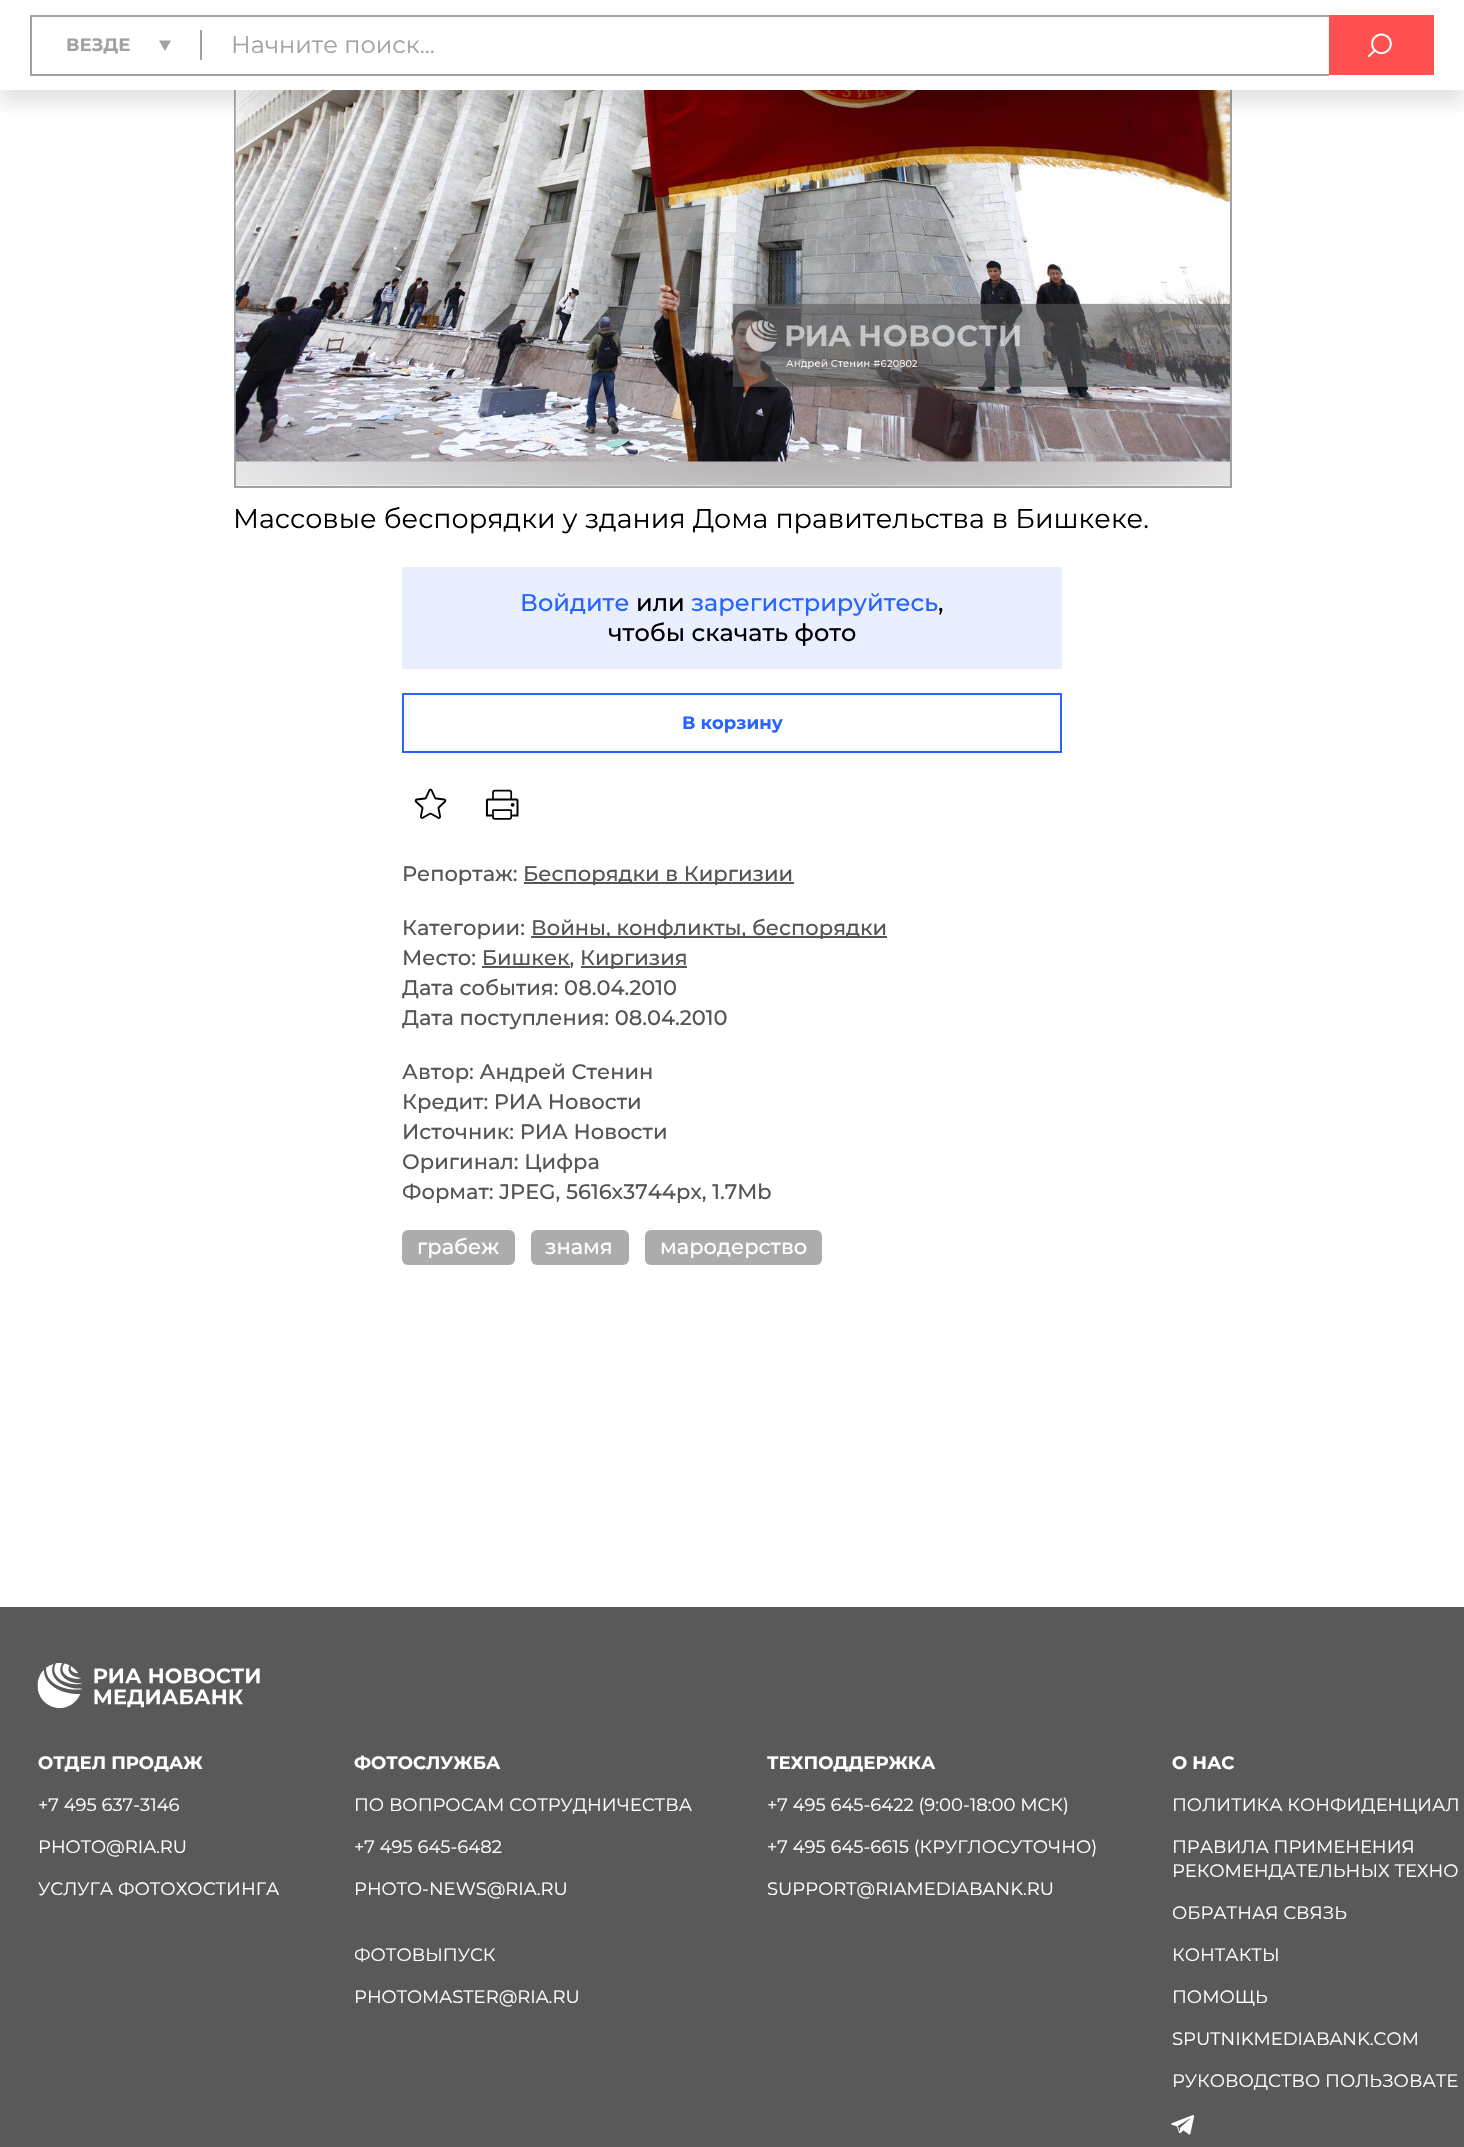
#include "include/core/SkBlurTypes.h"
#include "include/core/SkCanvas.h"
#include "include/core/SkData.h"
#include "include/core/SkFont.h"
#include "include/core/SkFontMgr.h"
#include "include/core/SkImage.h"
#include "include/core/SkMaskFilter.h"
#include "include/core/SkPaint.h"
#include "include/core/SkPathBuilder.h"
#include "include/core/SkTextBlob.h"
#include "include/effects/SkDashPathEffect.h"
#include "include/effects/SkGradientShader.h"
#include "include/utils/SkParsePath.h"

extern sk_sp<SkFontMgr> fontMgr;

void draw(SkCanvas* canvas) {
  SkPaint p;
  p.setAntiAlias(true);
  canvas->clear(SK_ColorWHITE);
  p.setStyle(SkPaint::kStroke_Style);
  p.setStrokeWidth(2);
  p.setColor(SkColorSetRGB(163, 162, 162));
  canvas->drawRect(SkRect::MakeLTRB(235, -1, 1231, 487), p);
  canvas->drawImageRect(SkImages::DeferredFromEncodedData(SkData::MakeFromFileName("images/2.png")), SkRect::MakeLTRB(235, 90, 1230, 486), SkSamplingOptions());
  canvas->drawImageRect(SkImages::DeferredFromEncodedData(SkData::MakeFromFileName("images/3.png")), SkRect::MakeLTRB(235, 90, 1230, 462), SkSamplingOptions());
  p.setStyle(SkPaint::kFill_Style);
  p.setColor(SkColorSetARGB(26, 0, 0, 0));
  p.setMaskFilter(SkMaskFilter::MakeBlur(kNormal_SkBlurStyle, 7.5f));
  canvas->drawRect(SkRect::MakeLTRB(0, -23, 1464, 104), p);
  p.setMaskFilter(nullptr);
  p.setColor(SK_ColorWHITE);
  canvas->drawRect(SkRect::MakeLTRB(0, 0, 1464, 90), p);
  p.setColor(SkColorSetRGB(163, 162, 162));
  canvas->drawRect(SkRect::MakeLTRB(30, 15, 1329, 17), p);
  canvas->drawRect(SkRect::MakeLTRB(30, 74, 1329, 76), p);
  canvas->drawRect(SkRect::MakeLTRB(30, 15, 32, 75), p);
  canvas->drawPath(SkPathBuilder().moveTo(159, 40.5f).lineTo(171, 40.5f).lineTo(165, 51).close().detach(), p);
  canvas->drawRect(SkRect::MakeLTRB(200, 30, 202, 60), p);
  p.setColor(SkColorSetRGB(255, 80, 80));
  canvas->drawRect(SkRect::MakeLTRB(1329, 15, 1434, 75), p);
  canvas->drawImageRect(SkImages::DeferredFromEncodedData(SkData::MakeFromFileName("images/1.png")), SkRect::MakeLTRB(1367, 33, 1392, 58), SkSamplingOptions());
  p.setColor(SkColorSetRGB(233, 239, 255));
  canvas->drawRect(SkRect::MakeLTRB(402, 567, 1062, 669), p);
  p.setStyle(SkPaint::kStroke_Style);
  p.setColor(SkColorSetRGB(40, 100, 255));
  canvas->drawRect(SkRect::MakeLTRB(403, 694, 1061, 752), p);
  canvas->drawImageRect(SkImages::DeferredFromEncodedData(SkData::MakeFromFileName("images/4.png")), SkRect::MakeLTRB(414, 788, 447, 819), SkSamplingOptions());
  canvas->drawImageRect(SkImages::DeferredFromEncodedData(SkData::MakeFromFileName("images/5.png")), SkRect::MakeLTRB(485, 789, 519, 820), SkSamplingOptions());
  p.setStyle(SkPaint::kFill_Style);
  p.setColor(SkColorSetRGB(85, 85, 85));
  canvas->drawRect(SkRect::MakeLTRB(524, 882, 794, 884), p);
  canvas->drawRect(SkRect::MakeLTRB(531, 936, 887, 938), p);
  canvas->drawRect(SkRect::MakeLTRB(581, 966, 687, 968), p);
  canvas->drawRect(SkRect::MakeLTRB(482, 966, 570, 968), p);
  p.setColor(SkColorSetRGB(172, 172, 172));
  canvas->drawRoundRect(SkRect::MakeLTRB(402, 1230, 515, 1265), 6, 6, p);
  canvas->drawRoundRect(SkRect::MakeLTRB(531, 1230, 629, 1265), 6, 6, p);
  canvas->drawRoundRect(SkRect::MakeLTRB(645, 1230, 822, 1265), 6, 6, p);
  p.setColor(SkColorSetRGB(89, 89, 89));
  canvas->drawRect(SkRect::MakeLTRB(0, 1607, 1464, 2147), p);
  canvas->drawImageRect(SkImages::DeferredFromEncodedData(SkData::MakeFromFileName("images/6.png")), SkRect::MakeLTRB(37, 1663, 260, 1708), SkSamplingOptions());
  canvas->drawImageRect(SkImages::DeferredFromEncodedData(SkData::MakeFromFileName("images/7.png")), SkRect::MakeLTRB(1171, 2115, 1194, 2135), SkSamplingOptions());
  SkFont font1(fontMgr->matchFamilyStyle("Montserrat", SkFontStyle::Bold()), 18);
  font1.setSubpixel(true);
  p.setColor(SkColorSetRGB(163, 162, 162));
  canvas->drawString("ВЕЗДЕ", 66, 51, font1, p);
  SkFont font2(fontMgr->matchFamilyStyle("Montserrat", SkFontStyle::Normal()), 24);
  font2.setSubpixel(true);
  canvas->drawString("Начните поиск...", 231, 53, font2, p);
  SkFont font3(fontMgr->matchFamilyStyle("Montserrat", SkFontStyle::Normal()), 27);
  font3.setSubpixel(true);
  p.setColor(SK_ColorBLACK);
  canvas->drawString("Массовые беспорядки у здания Дома правительства в Бишкеке.", 233, 528, font3, p);
  SkFont font4(fontMgr->matchFamilyStyle("Montserrat", SkFontStyle(500, SkFontStyle::kNormal_Width, SkFontStyle::kUpright_Slant)), 24);
  font4.setSubpixel(true);
  p.setColor(SkColorSetRGB(40, 100, 255));
  canvas->drawString("Войдите", 520, 611, font4, p);
  p.setColor(SK_ColorBLACK);
  canvas->drawString("или", 636, 611, font4, p);
  p.setColor(SkColorSetRGB(40, 100, 255));
  canvas->drawString("зарегистрируйтесь", 691, 611, font4, p);
  p.setColor(SK_ColorBLACK);
  canvas->drawString(",", 938, 611, font4, p);
  canvas->drawString("чтобы скачать фото", 608, 641, font4, p);
  p.setColor(SkColorSetRGB(40, 100, 255));
  canvas->drawString("В корзину", 682, 729, font1, p);
  SkFont font5(fontMgr->matchFamilyStyle("Montserrat", SkFontStyle(500, SkFontStyle::kNormal_Width, SkFontStyle::kUpright_Slant)), 21);
  font5.setSubpixel(true);
  p.setColor(SkColorSetRGB(85, 85, 85));
  canvas->drawString("Репортаж:", 402, 881, font5, p);
  canvas->drawString("Беспорядки в Киргизии", 523, 881, font5, p);
  canvas->drawString("Категории:", 402, 935, font5, p);
  canvas->drawString("Войны, конфликты, беспорядки", 531, 935, font5, p);
  canvas->drawString("Место: Бишкек,", 402, 965, font5, p);
  canvas->drawString("Киргизия", 580, 965, font5, p);
  canvas->drawString("Дата события: 08.04.2010", 402, 995, font5, p);
  canvas->drawString("Дата поступления: 08.04.2010", 402, 1025, font5, p);
  canvas->drawString("Автор: Андрей Стенин", 402, 1079, font5, p);
  canvas->drawString("Кредит: РИА Новости", 402, 1109, font5, p);
  canvas->drawString("Источник: РИА Новости", 402, 1139, font5, p);
  canvas->drawString("Оригинал: Цифра", 402, 1169, font5, p);
  canvas->drawString("Формат: JPEG, 5616x3744px, 1.7Mb", 402, 1199, font5, p);
  p.setColor(SK_ColorWHITE);
  canvas->drawString("грабеж", 417, 1254, font5, p);
  canvas->drawString("знамя", 545, 1254, font5, p);
  canvas->drawString("мародерство", 660, 1254, font5, p);
  canvas->drawString("ОТДЕЛ ПРОДАЖ", 38, 1769, font1, p);
  SkFont font6(fontMgr->matchFamilyStyle("Montserrat", SkFontStyle::Normal()), 18);
  font6.setSubpixel(true);
  canvas->drawString("+7 495 637-3146", 38, 1811, font6, p);
  canvas->drawString("PHOTO@RIA.RU", 38, 1853, font6, p);
  canvas->drawString("УСЛУГА ФОТОХОСТИНГА", 38, 1895, font6, p);
  canvas->drawString("ФОТОСЛУЖБА", 354, 1769, font1, p);
  canvas->drawString("ПО ВОПРОСАМ СОТРУДНИЧЕСТВА", 354, 1811, font6, p);
  canvas->drawString("+7 495 645-6482", 354, 1853, font6, p);
  canvas->drawString("PHOTO-NEWS@RIA.RU", 354, 1895, font6, p);
  canvas->drawString("ФОТОВЫПУСК", 354, 1961, font6, p);
  canvas->drawString("PHOTOMASTER@RIA.RU", 354, 2003, font6, p);
  canvas->drawString("ТЕХПОДДЕРЖКА", 767, 1769, font1, p);
  canvas->drawString("+7 495 645-6422 (9:00-18:00 МСК)", 767, 1811, font6, p);
  canvas->drawString("+7 495 645-6615 (КРУГЛОСУТОЧНО)", 767, 1853, font6, p);
  canvas->drawString("SUPPORT@RIAMEDIABANK.RU", 767, 1895, font6, p);
  canvas->drawString("О НАС", 1172, 1769, font1, p);
  canvas->drawString("ПОЛИТИКА КОНФИДЕНЦИАЛ", 1172, 1811, font6, p);
  canvas->drawString("ПРАВИЛА ПРИМЕНЕНИЯ", 1172, 1853, font6, p);
  canvas->drawString("РЕКОМЕНДАТЕЛЬНЫХ ТЕХНО", 1172, 1877, font6, p);
  canvas->drawString("ОБРАТНАЯ СВЯЗЬ", 1172, 1919, font6, p);
  canvas->drawString("КОНТАКТЫ", 1172, 1961, font6, p);
  canvas->drawString("ПОМОЩЬ", 1172, 2003, font6, p);
  canvas->drawString("SPUTNIKMEDIABANK.COM", 1172, 2045, font6, p);
  canvas->drawString("РУКОВОДСТВО ПОЛЬЗОВАТЕ", 1172, 2087, font6, p);
}
